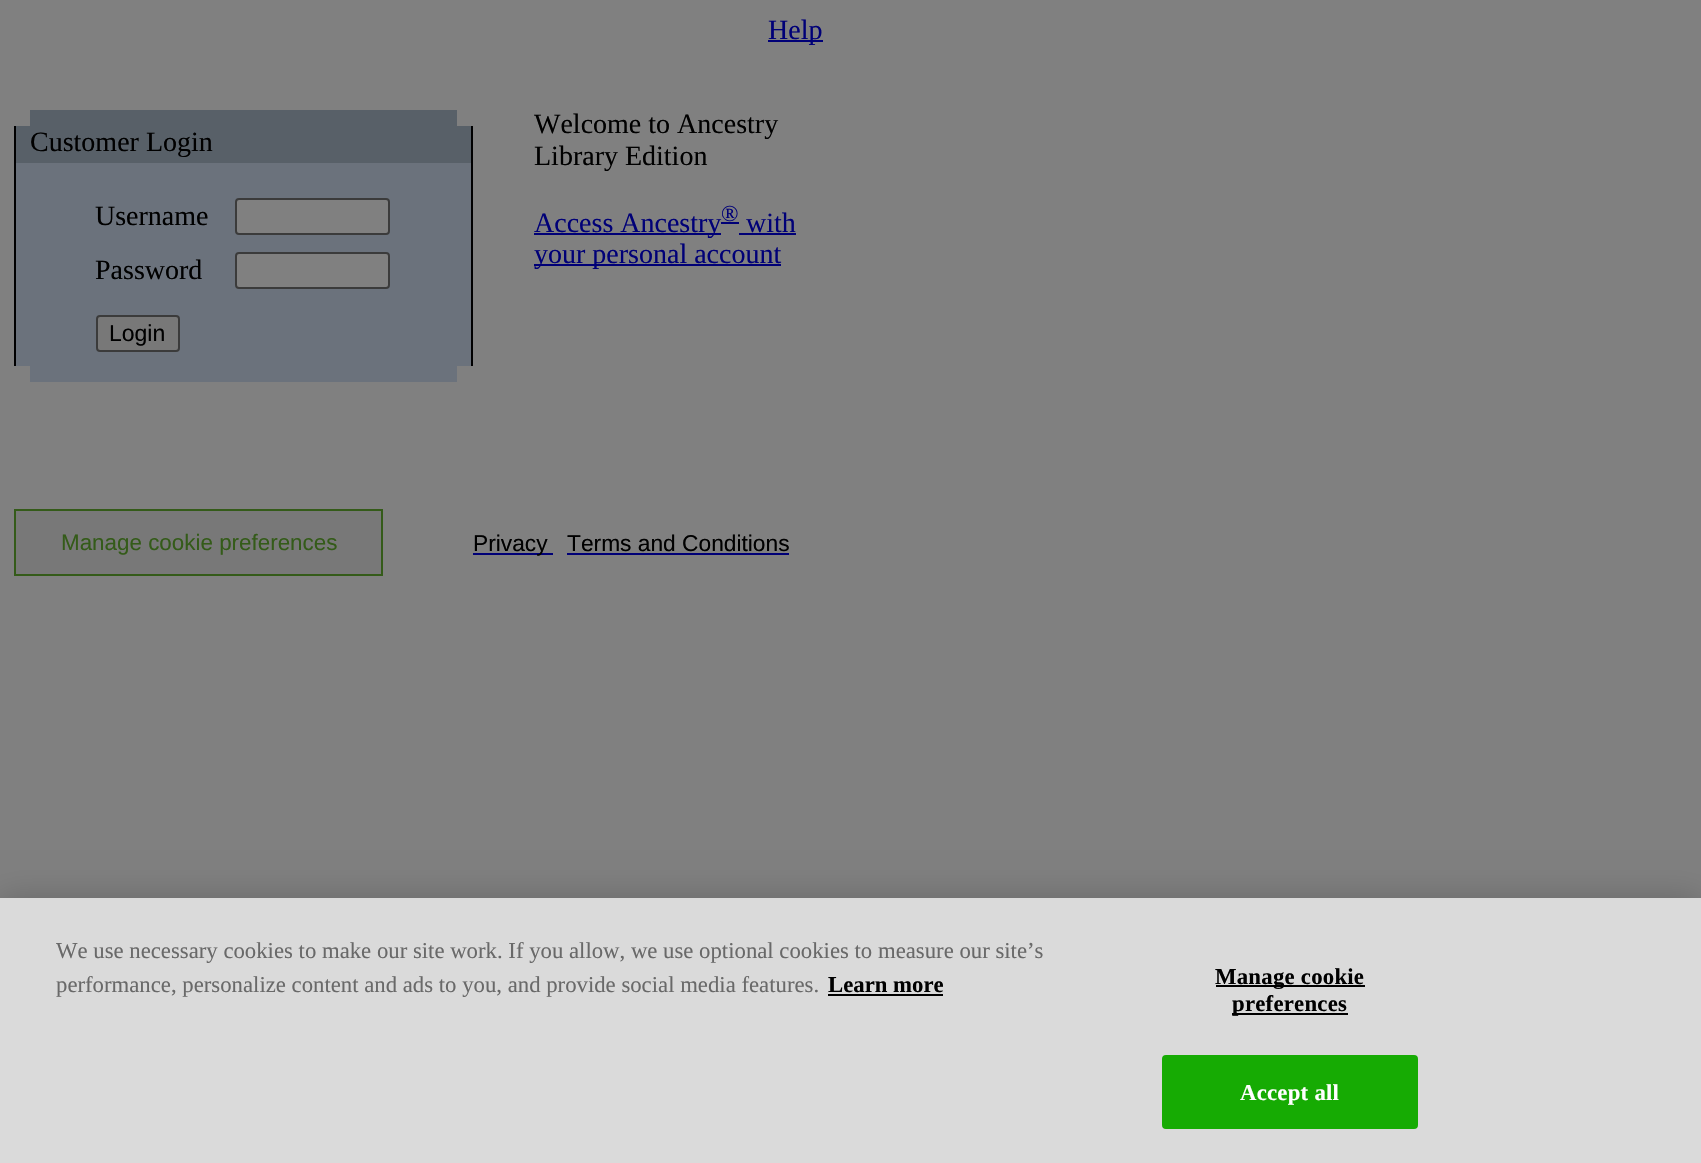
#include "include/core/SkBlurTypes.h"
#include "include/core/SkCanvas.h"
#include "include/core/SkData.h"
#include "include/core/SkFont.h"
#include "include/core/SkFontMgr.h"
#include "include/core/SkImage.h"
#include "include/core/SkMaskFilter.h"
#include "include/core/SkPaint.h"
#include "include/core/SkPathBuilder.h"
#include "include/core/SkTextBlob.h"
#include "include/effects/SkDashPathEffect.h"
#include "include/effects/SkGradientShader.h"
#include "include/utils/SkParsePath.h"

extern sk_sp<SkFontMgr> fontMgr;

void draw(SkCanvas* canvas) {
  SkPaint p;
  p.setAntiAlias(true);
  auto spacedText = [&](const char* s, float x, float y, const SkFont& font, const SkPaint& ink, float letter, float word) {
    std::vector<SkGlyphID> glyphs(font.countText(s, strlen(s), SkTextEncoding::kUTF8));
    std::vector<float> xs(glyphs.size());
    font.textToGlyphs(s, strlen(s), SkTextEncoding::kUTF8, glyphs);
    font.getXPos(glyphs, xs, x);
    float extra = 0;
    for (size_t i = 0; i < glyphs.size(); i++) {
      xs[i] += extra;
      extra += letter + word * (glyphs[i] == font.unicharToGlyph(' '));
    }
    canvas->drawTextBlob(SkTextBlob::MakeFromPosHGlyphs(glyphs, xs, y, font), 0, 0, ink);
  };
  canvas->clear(SkColorSetRGB(128, 128, 128));
  p.setColor(SkColorSetRGB(0, 0, 119));
  canvas->drawRect(SkRect::MakeLTRB(768, 40, 823, 42), p);
  p.setColor(SkColorSetRGB(88, 96, 104));
  canvas->drawRect(SkRect::MakeLTRB(30, 110, 457, 126), p);
  p.setColor(SkColorSetRGB(0, 0, 1));
  canvas->drawRect(SkRect::MakeLTRB(14, 126, 16, 366), p);
  p.setColor(SkColorSetRGB(88, 96, 104));
  canvas->drawRect(SkRect::MakeLTRB(16, 126, 471, 163), p);
  p.setColor(SkColorSetRGB(0, 0, 1));
  canvas->drawRect(SkRect::MakeLTRB(471, 126, 473, 366), p);
  p.setColor(SkColorSetRGB(107, 114, 124));
  canvas->drawRect(SkRect::MakeLTRB(16, 163, 471, 198), p);
  canvas->drawRect(SkRect::MakeLTRB(16, 198, 471, 366), p);
  p.setColor(SkColorSetRGB(128, 128, 128));
  canvas->drawRoundRect(SkRect::MakeLTRB(236, 199, 389, 234), 3, 3, p);
  p.setStyle(SkPaint::kStroke_Style);
  p.setStrokeWidth(2);
  p.setColor(SkColorSetRGB(59, 59, 59));
  canvas->drawRoundRect(SkRect::MakeLTRB(236, 199, 389, 234), 3, 3, p);
  p.setStyle(SkPaint::kFill_Style);
  p.setColor(SkColorSetRGB(128, 128, 128));
  canvas->drawRoundRect(SkRect::MakeLTRB(236, 253, 389, 288), 3, 3, p);
  p.setStyle(SkPaint::kStroke_Style);
  p.setColor(SkColorSetRGB(59, 59, 59));
  canvas->drawRoundRect(SkRect::MakeLTRB(236, 253, 389, 288), 3, 3, p);
  p.setStyle(SkPaint::kFill_Style);
  p.setColor(SkColorSetRGB(120, 120, 120));
  canvas->drawRoundRect(SkRect::MakeLTRB(97, 316, 179, 351), 3, 3, p);
  p.setStyle(SkPaint::kStroke_Style);
  p.setColor(SkColorSetRGB(59, 59, 59));
  canvas->drawRoundRect(SkRect::MakeLTRB(97, 316, 179, 351), 3, 3, p);
  p.setStyle(SkPaint::kFill_Style);
  p.setColor(SkColorSetRGB(107, 114, 124));
  canvas->drawRect(SkRect::MakeLTRB(30, 366, 457, 382), p);
  p.setColor(SkColorSetRGB(0, 0, 119));
  canvas->drawRect(SkRect::MakeLTRB(534, 233, 721, 235), p);
  canvas->drawRect(SkRect::MakeLTRB(721, 222, 739, 224), p);
  canvas->drawRect(SkRect::MakeLTRB(739, 233, 796, 235), p);
  canvas->drawRect(SkRect::MakeLTRB(534, 264, 781, 266), p);
  p.setColor(SkColorSetRGB(120, 120, 120));
  canvas->drawRect(SkRect::MakeLTRB(15, 510, 382, 575), p);
  p.setStyle(SkPaint::kStroke_Style);
  p.setColor(SkColorSetRGB(52, 91, 25));
  canvas->drawRect(SkRect::MakeLTRB(15, 510, 382, 575), p);
  p.setStyle(SkPaint::kFill_Style);
  p.setColor(SkColorSetRGB(0, 0, 119));
  canvas->drawRect(SkRect::MakeLTRB(473, 553, 553, 555), p);
  canvas->drawRect(SkRect::MakeLTRB(567, 553, 789, 555), p);
  p.setColor(SkColorSetARGB(51, 0, 0, 0));
  p.setMaskFilter(SkMaskFilter::MakeBlur(kNormal_SkBlurStyle, 16));
  canvas->drawRect(SkRect::MakeLTRB(0, 898, 1701, 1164), p);
  p.setMaskFilter(nullptr);
  p.setColor(SkColorSetRGB(218, 218, 218));
  canvas->drawRect(SkRect::MakeLTRB(0, 898, 1701, 1163), p);
  p.setColor(SK_ColorBLACK);
  canvas->drawRect(SkRect::MakeLTRB(828, 994, 943, 996), p);
  canvas->drawRect(SkRect::MakeLTRB(1216, 985, 1365, 987), p);
  canvas->drawRect(SkRect::MakeLTRB(1232, 1013, 1348, 1015), p);
  p.setColor(SkColorSetRGB(22, 171, 3));
  canvas->drawRoundRect(SkRect::MakeLTRB(1163, 1056, 1417, 1128), 3, 3, p);
  p.setStyle(SkPaint::kStroke_Style);
  canvas->drawRoundRect(SkRect::MakeLTRB(1163, 1056, 1417, 1128), 3, 3, p);
  SkFont font1(fontMgr->matchFamilyStyle("Liberation Serif", SkFontStyle::Normal()), 28);
  font1.setSubpixel(true);
  p.setStyle(SkPaint::kFill_Style);
  p.setColor(SkColorSetRGB(0, 0, 119));
  canvas->drawString("Help", 768, 39, font1, p);
  p.setColor(SK_ColorBLACK);
  canvas->drawString("Customer Login", 30, 151, font1, p);
  canvas->drawString("Username", 95, 225, font1, p);
  canvas->drawString("Password", 95, 279, font1, p);
  SkFont font2(fontMgr->matchFamilyStyle("Liberation Sans", SkFontStyle::Normal()), 23);
  font2.setSubpixel(true);
  canvas->drawString("Login", 109, 341, font2, p);
  canvas->drawString("Welcome to Ancestry", 534, 133, font1, p);
  canvas->drawString("Library Edition", 534, 165, font1, p);
  p.setColor(SkColorSetRGB(0, 0, 119));
  canvas->drawString("Access Ancestry", 534, 232, font1, p);
  SkFont font3(fontMgr->matchFamilyStyle("Liberation Serif", SkFontStyle::Normal()), 23);
  font3.setSubpixel(true);
  canvas->drawString("®", 721, 221, font3, p);
  canvas->drawString("with", 746, 232, font1, p);
  canvas->drawString("your personal account", 534, 263, font1, p);
  SkFont font4(fontMgr->matchFamilyStyle("Liberation Sans", SkFontStyle::Normal()), 22.4f);
  font4.setSubpixel(true);
  p.setColor(SkColorSetRGB(52, 91, 25));
  canvas->drawString("Manage cookie preferences", 61, 550, font4, p);
  SkFont font5(fontMgr->matchFamilyStyle("Liberation Sans", SkFontStyle::Normal()), 22.75f);
  font5.setSubpixel(true);
  p.setColor(SK_ColorBLACK);
  canvas->drawString("Privacy", 473, 551, font5, p);
  canvas->drawString("Terms and Conditions", 567, 551, font5, p);
  SkFont font6(fontMgr->matchFamilyStyle("Liberation Serif", SkFontStyle::Normal()), 22.75f);
  font6.setSubpixel(true);
  p.setColor(SkColorSetRGB(105, 105, 105));
  canvas->drawString("We use necessary cookies to make our site work. If you allow, we use optional cookies to measure our site’s", 56, 958, font6, p);
  canvas->drawString("performance, personalize content and ads to you, and provide social media features.", 56, 992, font6, p);
  SkFont font7(fontMgr->matchFamilyStyle("Liberation Serif", SkFontStyle::Bold()), 22.75f);
  font7.setSubpixel(true);
  p.setColor(SK_ColorBLACK);
  canvas->drawString("Learn more", 828, 992, font7, p);
  spacedText("Manage cookie", 1215, 984, font7, p, 0.25f, 0);
  spacedText("preferences", 1232, 1011, font7, p, 0.25f, 0);
  p.setColor(SK_ColorWHITE);
  spacedText("Accept all", 1240, 1100, font7, p, 0.25f, 0);
}
